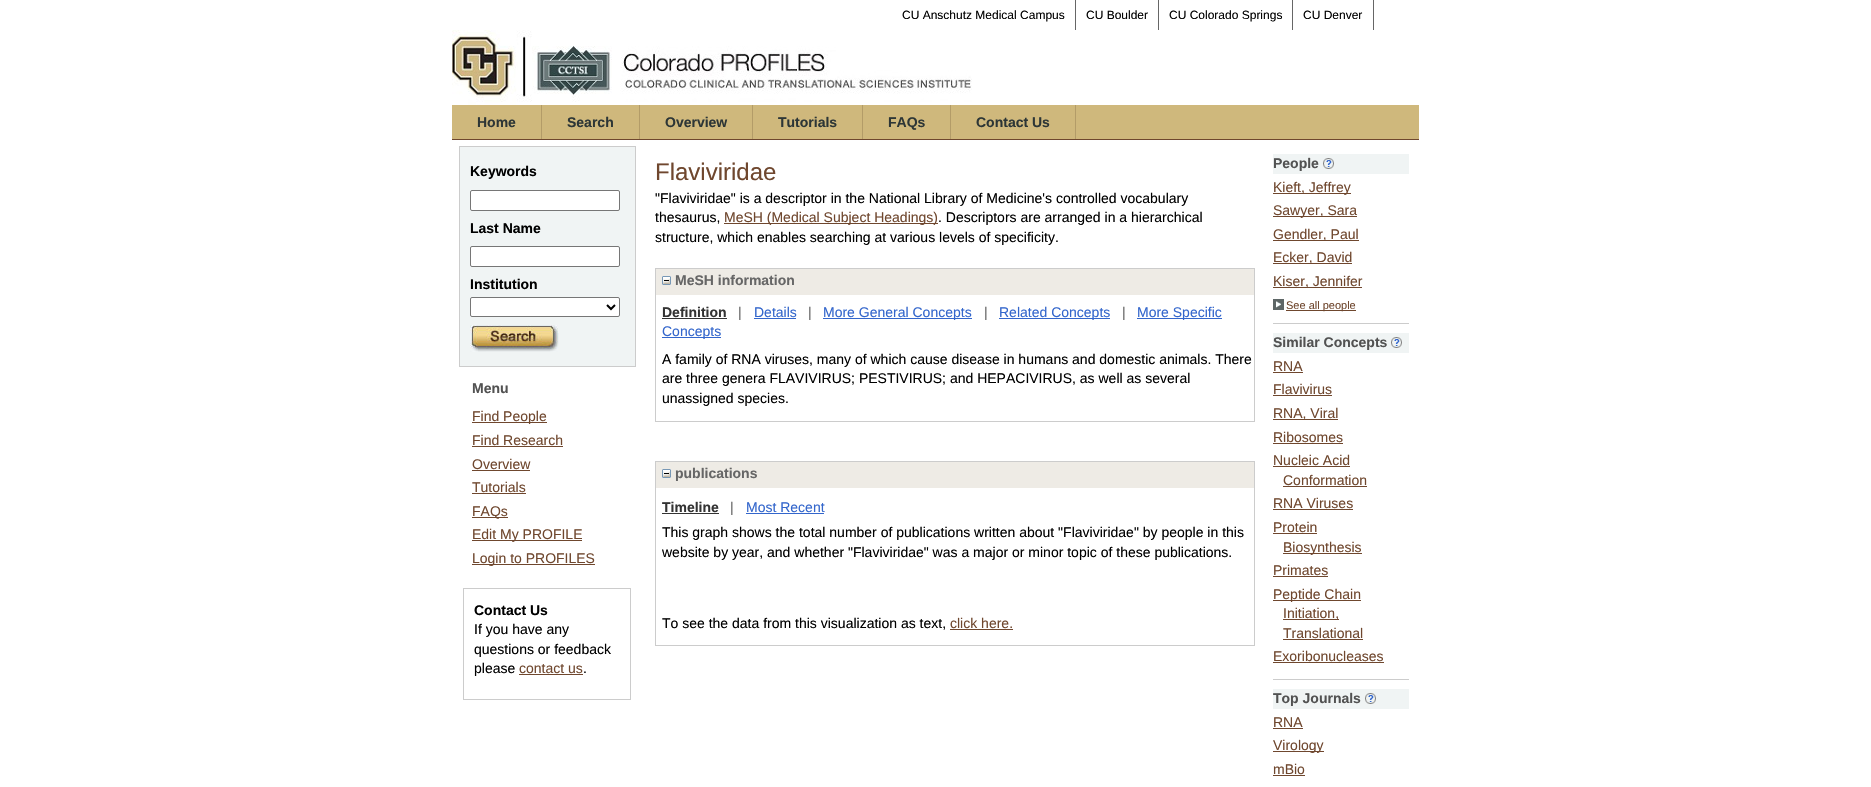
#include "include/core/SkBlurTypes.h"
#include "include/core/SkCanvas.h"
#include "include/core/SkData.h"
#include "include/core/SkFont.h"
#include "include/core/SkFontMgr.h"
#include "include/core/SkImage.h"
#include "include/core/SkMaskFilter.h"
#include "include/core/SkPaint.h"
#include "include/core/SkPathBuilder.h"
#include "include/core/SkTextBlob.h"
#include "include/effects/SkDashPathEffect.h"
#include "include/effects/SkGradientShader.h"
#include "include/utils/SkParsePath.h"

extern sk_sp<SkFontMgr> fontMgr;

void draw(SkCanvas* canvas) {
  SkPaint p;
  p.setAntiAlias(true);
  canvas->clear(SK_ColorWHITE);
  p.setColor(SkColorSetRGB(102, 102, 102));
  canvas->drawRect(SkRect::MakeLTRB(1075, 0, 1076, 30), p);
  canvas->drawRect(SkRect::MakeLTRB(1158, 0, 1159, 30), p);
  canvas->drawRect(SkRect::MakeLTRB(1292, 0, 1293, 30), p);
  canvas->drawRect(SkRect::MakeLTRB(1373, 0, 1374, 30), p);
  canvas->drawImageRect(SkImages::DeferredFromEncodedData(SkData::MakeFromFileName("images/1.png")), SkRect::MakeLTRB(452, 30, 972, 105), SkSamplingOptions());
  p.setColor(SkColorSetRGB(207, 184, 124));
  canvas->drawRect(SkRect::MakeLTRB(452, 105, 1419, 139), p);
  p.setColor(SkColorSetRGB(111, 71, 46));
  canvas->drawRect(SkRect::MakeLTRB(452, 139, 1419, 140), p);
  p.setColor(SkColorSetRGB(179, 156, 104));
  canvas->drawRect(SkRect::MakeLTRB(541, 105, 542, 139), p);
  canvas->drawRect(SkRect::MakeLTRB(639, 105, 640, 139), p);
  canvas->drawRect(SkRect::MakeLTRB(752, 105, 753, 139), p);
  canvas->drawRect(SkRect::MakeLTRB(862, 105, 863, 139), p);
  canvas->drawRect(SkRect::MakeLTRB(950, 105, 951, 139), p);
  canvas->drawRect(SkRect::MakeLTRB(1075, 105, 1076, 139), p);
  p.setColor(SkColorSetRGB(240, 244, 244));
  canvas->drawRect(SkRect::MakeLTRB(459.5f, 146.5f, 635.5f, 366.5f), p);
  p.setStyle(SkPaint::kStroke_Style);
  p.setStrokeWidth(1);
  p.setColor(SkColorSetRGB(204, 204, 204));
  canvas->drawRect(SkRect::MakeLTRB(459.5f, 146.5f, 635.5f, 366.5f), p);
  p.setStyle(SkPaint::kFill_Style);
  p.setColor(SK_ColorWHITE);
  canvas->drawRoundRect(SkRect::MakeLTRB(470.5f, 190.5f, 619.5f, 210.5f), 1.5f, 1.5f, p);
  p.setStyle(SkPaint::kStroke_Style);
  p.setColor(SkColorSetRGB(118, 118, 118));
  canvas->drawRoundRect(SkRect::MakeLTRB(470.5f, 190.5f, 619.5f, 210.5f), 1.5f, 1.5f, p);
  p.setStyle(SkPaint::kFill_Style);
  p.setColor(SK_ColorWHITE);
  canvas->drawRoundRect(SkRect::MakeLTRB(470.5f, 246.5f, 619.5f, 266.5f), 1.5f, 1.5f, p);
  p.setStyle(SkPaint::kStroke_Style);
  p.setColor(SkColorSetRGB(118, 118, 118));
  canvas->drawRoundRect(SkRect::MakeLTRB(470.5f, 246.5f, 619.5f, 266.5f), 1.5f, 1.5f, p);
  p.setStyle(SkPaint::kFill_Style);
  p.setColor(SK_ColorWHITE);
  canvas->drawRoundRect(SkRect::MakeLTRB(470.5f, 297.5f, 619.5f, 316.5f), 1.5f, 1.5f, p);
  p.setStyle(SkPaint::kStroke_Style);
  p.setColor(SkColorSetRGB(118, 118, 118));
  canvas->drawRoundRect(SkRect::MakeLTRB(470.5f, 297.5f, 619.5f, 316.5f), 1.5f, 1.5f, p);
  p.setStrokeWidth(2);
  p.setColor(SK_ColorBLACK);
  canvas->drawPath(SkPathBuilder().moveTo(607, 305).lineTo(611, 309).lineTo(615, 305).detach(), p);
  canvas->drawImageRect(SkImages::DeferredFromEncodedData(SkData::MakeFromFileName("images/2.png")), SkRect::MakeLTRB(470, 325, 559, 352), SkSamplingOptions());
  p.setStyle(SkPaint::kFill_Style);
  p.setColor(SkColorSetRGB(111, 71, 46));
  canvas->drawRect(SkRect::MakeLTRB(472, 422, 547, 423), p);
  canvas->drawRect(SkRect::MakeLTRB(472, 446, 563, 447), p);
  canvas->drawRect(SkRect::MakeLTRB(472, 470, 530, 471), p);
  canvas->drawRect(SkRect::MakeLTRB(472, 493, 526, 494), p);
  canvas->drawRect(SkRect::MakeLTRB(472, 517, 508, 518), p);
  canvas->drawRect(SkRect::MakeLTRB(472, 540, 582, 541), p);
  canvas->drawRect(SkRect::MakeLTRB(472, 564, 595, 565), p);
  p.setStyle(SkPaint::kStroke_Style);
  p.setStrokeWidth(1);
  p.setColor(SkColorSetRGB(204, 204, 204));
  canvas->drawRect(SkRect::MakeLTRB(463.5f, 588.5f, 630.5f, 699.5f), p);
  p.setStyle(SkPaint::kFill_Style);
  p.setColor(SkColorSetRGB(111, 71, 46));
  canvas->drawRect(SkRect::MakeLTRB(519, 674, 583, 675), p);
  canvas->drawRect(SkRect::MakeLTRB(724, 223, 938, 224), p);
  p.setStyle(SkPaint::kStroke_Style);
  p.setColor(SkColorSetRGB(204, 204, 204));
  canvas->drawRect(SkRect::MakeLTRB(655.5f, 268.5f, 1254.5f, 421.5f), p);
  p.setStyle(SkPaint::kFill_Style);
  p.setColor(SkColorSetRGB(238, 235, 229));
  canvas->drawRect(SkRect::MakeLTRB(656, 269, 1254, 295), p);
  canvas->drawImageRect(SkImages::DeferredFromEncodedData(SkData::MakeFromFileName("images/3.png")), SkRect::MakeLTRB(662, 276, 671, 285), SkSamplingOptions());
  p.setColor(SkColorSetRGB(51, 51, 51));
  canvas->drawRect(SkRect::MakeLTRB(662, 318, 727, 319), p);
  p.setColor(SkColorSetRGB(51, 102, 204));
  canvas->drawRect(SkRect::MakeLTRB(754, 318, 796, 319), p);
  canvas->drawRect(SkRect::MakeLTRB(823, 318, 972, 319), p);
  canvas->drawRect(SkRect::MakeLTRB(999, 318, 1110, 319), p);
  canvas->drawRect(SkRect::MakeLTRB(1137, 318, 1222, 319), p);
  canvas->drawRect(SkRect::MakeLTRB(662, 337, 721, 338), p);
  p.setStyle(SkPaint::kStroke_Style);
  p.setColor(SkColorSetRGB(204, 204, 204));
  canvas->drawRect(SkRect::MakeLTRB(655.5f, 461.5f, 1254.5f, 645.5f), p);
  p.setStyle(SkPaint::kFill_Style);
  p.setColor(SkColorSetRGB(238, 235, 229));
  canvas->drawRect(SkRect::MakeLTRB(656, 462, 1254, 488), p);
  canvas->drawImageRect(SkImages::DeferredFromEncodedData(SkData::MakeFromFileName("images/3.png")), SkRect::MakeLTRB(662, 469, 671, 478), SkSamplingOptions());
  p.setColor(SkColorSetRGB(51, 51, 51));
  canvas->drawRect(SkRect::MakeLTRB(662, 513, 719, 514), p);
  p.setColor(SkColorSetRGB(51, 102, 204));
  canvas->drawRect(SkRect::MakeLTRB(746, 513, 824, 514), p);
  p.setColor(SkColorSetRGB(111, 71, 46));
  canvas->drawRect(SkRect::MakeLTRB(950, 629, 1013, 630), p);
  p.setColor(SkColorSetRGB(240, 244, 244));
  canvas->drawRect(SkRect::MakeLTRB(1273, 154, 1409, 174), p);
  canvas->drawImageRect(SkImages::DeferredFromEncodedData(SkData::MakeFromFileName("images/4.png")), SkRect::MakeLTRB(1323, 158, 1334, 169), SkSamplingOptions());
  p.setColor(SkColorSetRGB(111, 71, 46));
  canvas->drawRect(SkRect::MakeLTRB(1273, 193, 1351, 194), p);
  canvas->drawRect(SkRect::MakeLTRB(1273, 216, 1357, 217), p);
  canvas->drawRect(SkRect::MakeLTRB(1273, 240, 1359, 241), p);
  canvas->drawRect(SkRect::MakeLTRB(1273, 263, 1352, 264), p);
  canvas->drawRect(SkRect::MakeLTRB(1273, 287, 1362, 288), p);
  canvas->drawImageRect(SkImages::DeferredFromEncodedData(SkData::MakeFromFileName("images/5.png")), SkRect::MakeLTRB(1273, 299, 1284, 310), SkSamplingOptions());
  canvas->drawRect(SkRect::MakeLTRB(1286, 310, 1356, 311), p);
  p.setColor(SkColorSetRGB(204, 204, 204));
  canvas->drawRect(SkRect::MakeLTRB(1273, 323, 1409, 324), p);
  p.setColor(SkColorSetRGB(240, 244, 244));
  canvas->drawRect(SkRect::MakeLTRB(1273, 333, 1409, 353), p);
  canvas->drawImageRect(SkImages::DeferredFromEncodedData(SkData::MakeFromFileName("images/4.png")), SkRect::MakeLTRB(1391, 337, 1402, 348), SkSamplingOptions());
  p.setColor(SkColorSetRGB(111, 71, 46));
  canvas->drawRect(SkRect::MakeLTRB(1273, 372, 1303, 373), p);
  canvas->drawRect(SkRect::MakeLTRB(1273, 395, 1332, 396), p);
  canvas->drawRect(SkRect::MakeLTRB(1273, 419, 1338, 420), p);
  canvas->drawRect(SkRect::MakeLTRB(1273, 443, 1343, 444), p);
  canvas->drawRect(SkRect::MakeLTRB(1273, 466, 1350, 467), p);
  canvas->drawRect(SkRect::MakeLTRB(1283, 486, 1367, 487), p);
  canvas->drawRect(SkRect::MakeLTRB(1273, 509, 1353, 510), p);
  canvas->drawRect(SkRect::MakeLTRB(1273, 533, 1317, 534), p);
  canvas->drawRect(SkRect::MakeLTRB(1283, 553, 1362, 554), p);
  canvas->drawRect(SkRect::MakeLTRB(1273, 576, 1328, 577), p);
  canvas->drawRect(SkRect::MakeLTRB(1273, 600, 1361, 601), p);
  canvas->drawRect(SkRect::MakeLTRB(1283, 619, 1339, 620), p);
  canvas->drawRect(SkRect::MakeLTRB(1283, 639, 1363, 640), p);
  canvas->drawRect(SkRect::MakeLTRB(1273, 662, 1384, 663), p);
  p.setColor(SkColorSetRGB(204, 204, 204));
  canvas->drawRect(SkRect::MakeLTRB(1273, 679, 1409, 680), p);
  p.setColor(SkColorSetRGB(240, 244, 244));
  canvas->drawRect(SkRect::MakeLTRB(1273, 689, 1409, 709), p);
  canvas->drawImageRect(SkImages::DeferredFromEncodedData(SkData::MakeFromFileName("images/4.png")), SkRect::MakeLTRB(1365, 693, 1376, 704), SkSamplingOptions());
  p.setColor(SkColorSetRGB(111, 71, 46));
  canvas->drawRect(SkRect::MakeLTRB(1273, 728, 1303, 729), p);
  canvas->drawRect(SkRect::MakeLTRB(1273, 751, 1324, 752), p);
  canvas->drawRect(SkRect::MakeLTRB(1273, 775, 1305, 776), p);
  SkFont font1(fontMgr->matchFamilyStyle("Liberation Sans", SkFontStyle::Normal()), 12);
  font1.setSubpixel(true);
  p.setColor(SK_ColorBLACK);
  canvas->drawString("CU Anschutz Medical Campus", 902, 19, font1, p);
  canvas->drawString("CU Boulder", 1086, 19, font1, p);
  canvas->drawString("CU Colorado Springs", 1169, 19, font1, p);
  canvas->drawString("CU Denver", 1303, 19, font1, p);
  SkFont font2(fontMgr->matchFamilyStyle("Liberation Sans", SkFontStyle::Bold()), 14);
  font2.setSubpixel(true);
  p.setColor(SkColorSetRGB(45, 54, 54));
  canvas->drawString("Home", 477, 127, font2, p);
  canvas->drawString("Search", 567, 127, font2, p);
  canvas->drawString("Overview", 665, 127, font2, p);
  canvas->drawString("Tutorials", 778, 127, font2, p);
  canvas->drawString("FAQs", 888, 127, font2, p);
  canvas->drawString("Contact Us", 976, 127, font2, p);
  p.setColor(SK_ColorBLACK);
  canvas->drawString("Keywords", 470, 176, font2, p);
  canvas->drawString("Last Name", 470, 233, font2, p);
  canvas->drawString("Institution", 470, 289, font2, p);
  p.setColor(SkColorSetRGB(82, 82, 82));
  canvas->drawString("Menu", 472, 393, font2, p);
  SkFont font3(fontMgr->matchFamilyStyle("Liberation Sans", SkFontStyle::Normal()), 14);
  font3.setSubpixel(true);
  p.setColor(SkColorSetRGB(111, 71, 46));
  canvas->drawString("Find People", 472, 421, font3, p);
  canvas->drawString("Find Research", 472, 445, font3, p);
  canvas->drawString("Overview", 472, 469, font3, p);
  canvas->drawString("Tutorials", 472, 492, font3, p);
  canvas->drawString("FAQs", 472, 516, font3, p);
  canvas->drawString("Edit My PROFILE", 472, 539, font3, p);
  canvas->drawString("Login to PROFILES", 472, 563, font3, p);
  p.setColor(SK_ColorBLACK);
  canvas->drawString("Contact Us", 474, 615, font2, p);
  canvas->drawString("If you have any", 474, 634, font3, p);
  canvas->drawString("questions or feedback", 474, 654, font3, p);
  canvas->drawString("please", 474, 673, font3, p);
  p.setColor(SkColorSetRGB(111, 71, 46));
  canvas->drawString("contact us", 519, 673, font3, p);
  p.setColor(SK_ColorBLACK);
  canvas->drawString(".", 583, 673, font3, p);
  SkFont font4(fontMgr->matchFamilyStyle("Liberation Sans", SkFontStyle::Normal()), 24);
  font4.setSubpixel(true);
  p.setColor(SkColorSetRGB(111, 71, 46));
  canvas->drawString("Flaviviridae", 655, 180, font4, p);
  p.setColor(SK_ColorBLACK);
  canvas->drawString("\"Flaviviridae\" is a descriptor in the National Library of Medicine's controlled vocabulary", 655, 203, font3, p);
  canvas->drawString("thesaurus,", 655, 222, font3, p);
  p.setColor(SkColorSetRGB(111, 71, 46));
  canvas->drawString("MeSH (Medical Subject Headings)", 724, 222, font3, p);
  p.setColor(SK_ColorBLACK);
  canvas->drawString(". Descriptors are arranged in a hierarchical", 938, 222, font3, p);
  canvas->drawString("structure, which enables searching at various levels of specificity.", 655, 242, font3, p);
  p.setColor(SkColorSetRGB(102, 102, 102));
  canvas->drawString("MeSH information", 675, 285, font2, p);
  p.setColor(SkColorSetRGB(51, 51, 51));
  canvas->drawString("Definition", 662, 317, font2, p);
  p.setColor(SkColorSetRGB(102, 102, 102));
  canvas->drawString("|", 738, 317, font3, p);
  p.setColor(SkColorSetRGB(51, 102, 204));
  canvas->drawString("Details", 754, 317, font3, p);
  p.setColor(SkColorSetRGB(102, 102, 102));
  canvas->drawString("|", 808, 317, font3, p);
  p.setColor(SkColorSetRGB(51, 102, 204));
  canvas->drawString("More General Concepts", 823, 317, font3, p);
  p.setColor(SkColorSetRGB(102, 102, 102));
  canvas->drawString("|", 984, 317, font3, p);
  p.setColor(SkColorSetRGB(51, 102, 204));
  canvas->drawString("Related Concepts", 999, 317, font3, p);
  p.setColor(SkColorSetRGB(102, 102, 102));
  canvas->drawString("|", 1122, 317, font3, p);
  p.setColor(SkColorSetRGB(51, 102, 204));
  canvas->drawString("More Specific", 1137, 317, font3, p);
  canvas->drawString("Concepts", 662, 336, font3, p);
  p.setColor(SK_ColorBLACK);
  canvas->drawString("A family of RNA viruses, many of which cause disease in humans and domestic animals. There", 662, 364, font3, p);
  canvas->drawString("are three genera FLAVIVIRUS; PESTIVIRUS; and HEPACIVIRUS, as well as several", 662, 383, font3, p);
  canvas->drawString("unassigned species.", 662, 403, font3, p);
  p.setColor(SkColorSetRGB(102, 102, 102));
  canvas->drawString("publications", 675, 478, font2, p);
  p.setColor(SkColorSetRGB(51, 51, 51));
  canvas->drawString("Timeline", 662, 512, font2, p);
  p.setColor(SkColorSetRGB(102, 102, 102));
  canvas->drawString("|", 730, 512, font3, p);
  p.setColor(SkColorSetRGB(51, 102, 204));
  canvas->drawString("Most Recent", 746, 512, font3, p);
  p.setColor(SK_ColorBLACK);
  canvas->drawString("This graph shows the total number of publications written about \"Flaviviridae\" by people in this", 662, 537, font3, p);
  canvas->drawString("website by year, and whether \"Flaviviridae\" was a major or minor topic of these publications.", 662, 557, font3, p);
  canvas->drawString("To see the data from this visualization as text,", 662, 628, font3, p);
  p.setColor(SkColorSetRGB(111, 71, 46));
  canvas->drawString("click here.", 950, 628, font3, p);
  p.setColor(SkColorSetRGB(82, 82, 82));
  canvas->drawString("People", 1273, 168, font2, p);
  p.setColor(SkColorSetRGB(111, 71, 46));
  canvas->drawString("Kieft, Jeffrey", 1273, 192, font3, p);
  canvas->drawString("Sawyer, Sara", 1273, 215, font3, p);
  canvas->drawString("Gendler, Paul", 1273, 239, font3, p);
  canvas->drawString("Ecker, David", 1273, 262, font3, p);
  canvas->drawString("Kiser, Jennifer", 1273, 286, font3, p);
  SkFont font5(fontMgr->matchFamilyStyle("Liberation Sans", SkFontStyle::Normal()), 11);
  font5.setSubpixel(true);
  canvas->drawString("See all people", 1286, 309, font5, p);
  p.setColor(SkColorSetRGB(82, 82, 82));
  canvas->drawString("Similar Concepts", 1273, 347, font2, p);
  p.setColor(SkColorSetRGB(111, 71, 46));
  canvas->drawString("RNA", 1273, 371, font3, p);
  canvas->drawString("Flavivirus", 1273, 394, font3, p);
  canvas->drawString("RNA, Viral", 1273, 418, font3, p);
  canvas->drawString("Ribosomes", 1273, 442, font3, p);
  canvas->drawString("Nucleic Acid", 1273, 465, font3, p);
  canvas->drawString("Conformation", 1283, 485, font3, p);
  canvas->drawString("RNA Viruses", 1273, 508, font3, p);
  canvas->drawString("Protein", 1273, 532, font3, p);
  canvas->drawString("Biosynthesis", 1283, 552, font3, p);
  canvas->drawString("Primates", 1273, 575, font3, p);
  canvas->drawString("Peptide Chain", 1273, 599, font3, p);
  canvas->drawString("Initiation,", 1283, 618, font3, p);
  canvas->drawString("Translational", 1283, 638, font3, p);
  canvas->drawString("Exoribonucleases", 1273, 661, font3, p);
  p.setColor(SkColorSetRGB(82, 82, 82));
  canvas->drawString("Top Journals", 1273, 703, font2, p);
  p.setColor(SkColorSetRGB(111, 71, 46));
  canvas->drawString("RNA", 1273, 727, font3, p);
  canvas->drawString("Virology", 1273, 750, font3, p);
  canvas->drawString("mBio", 1273, 774, font3, p);
}
